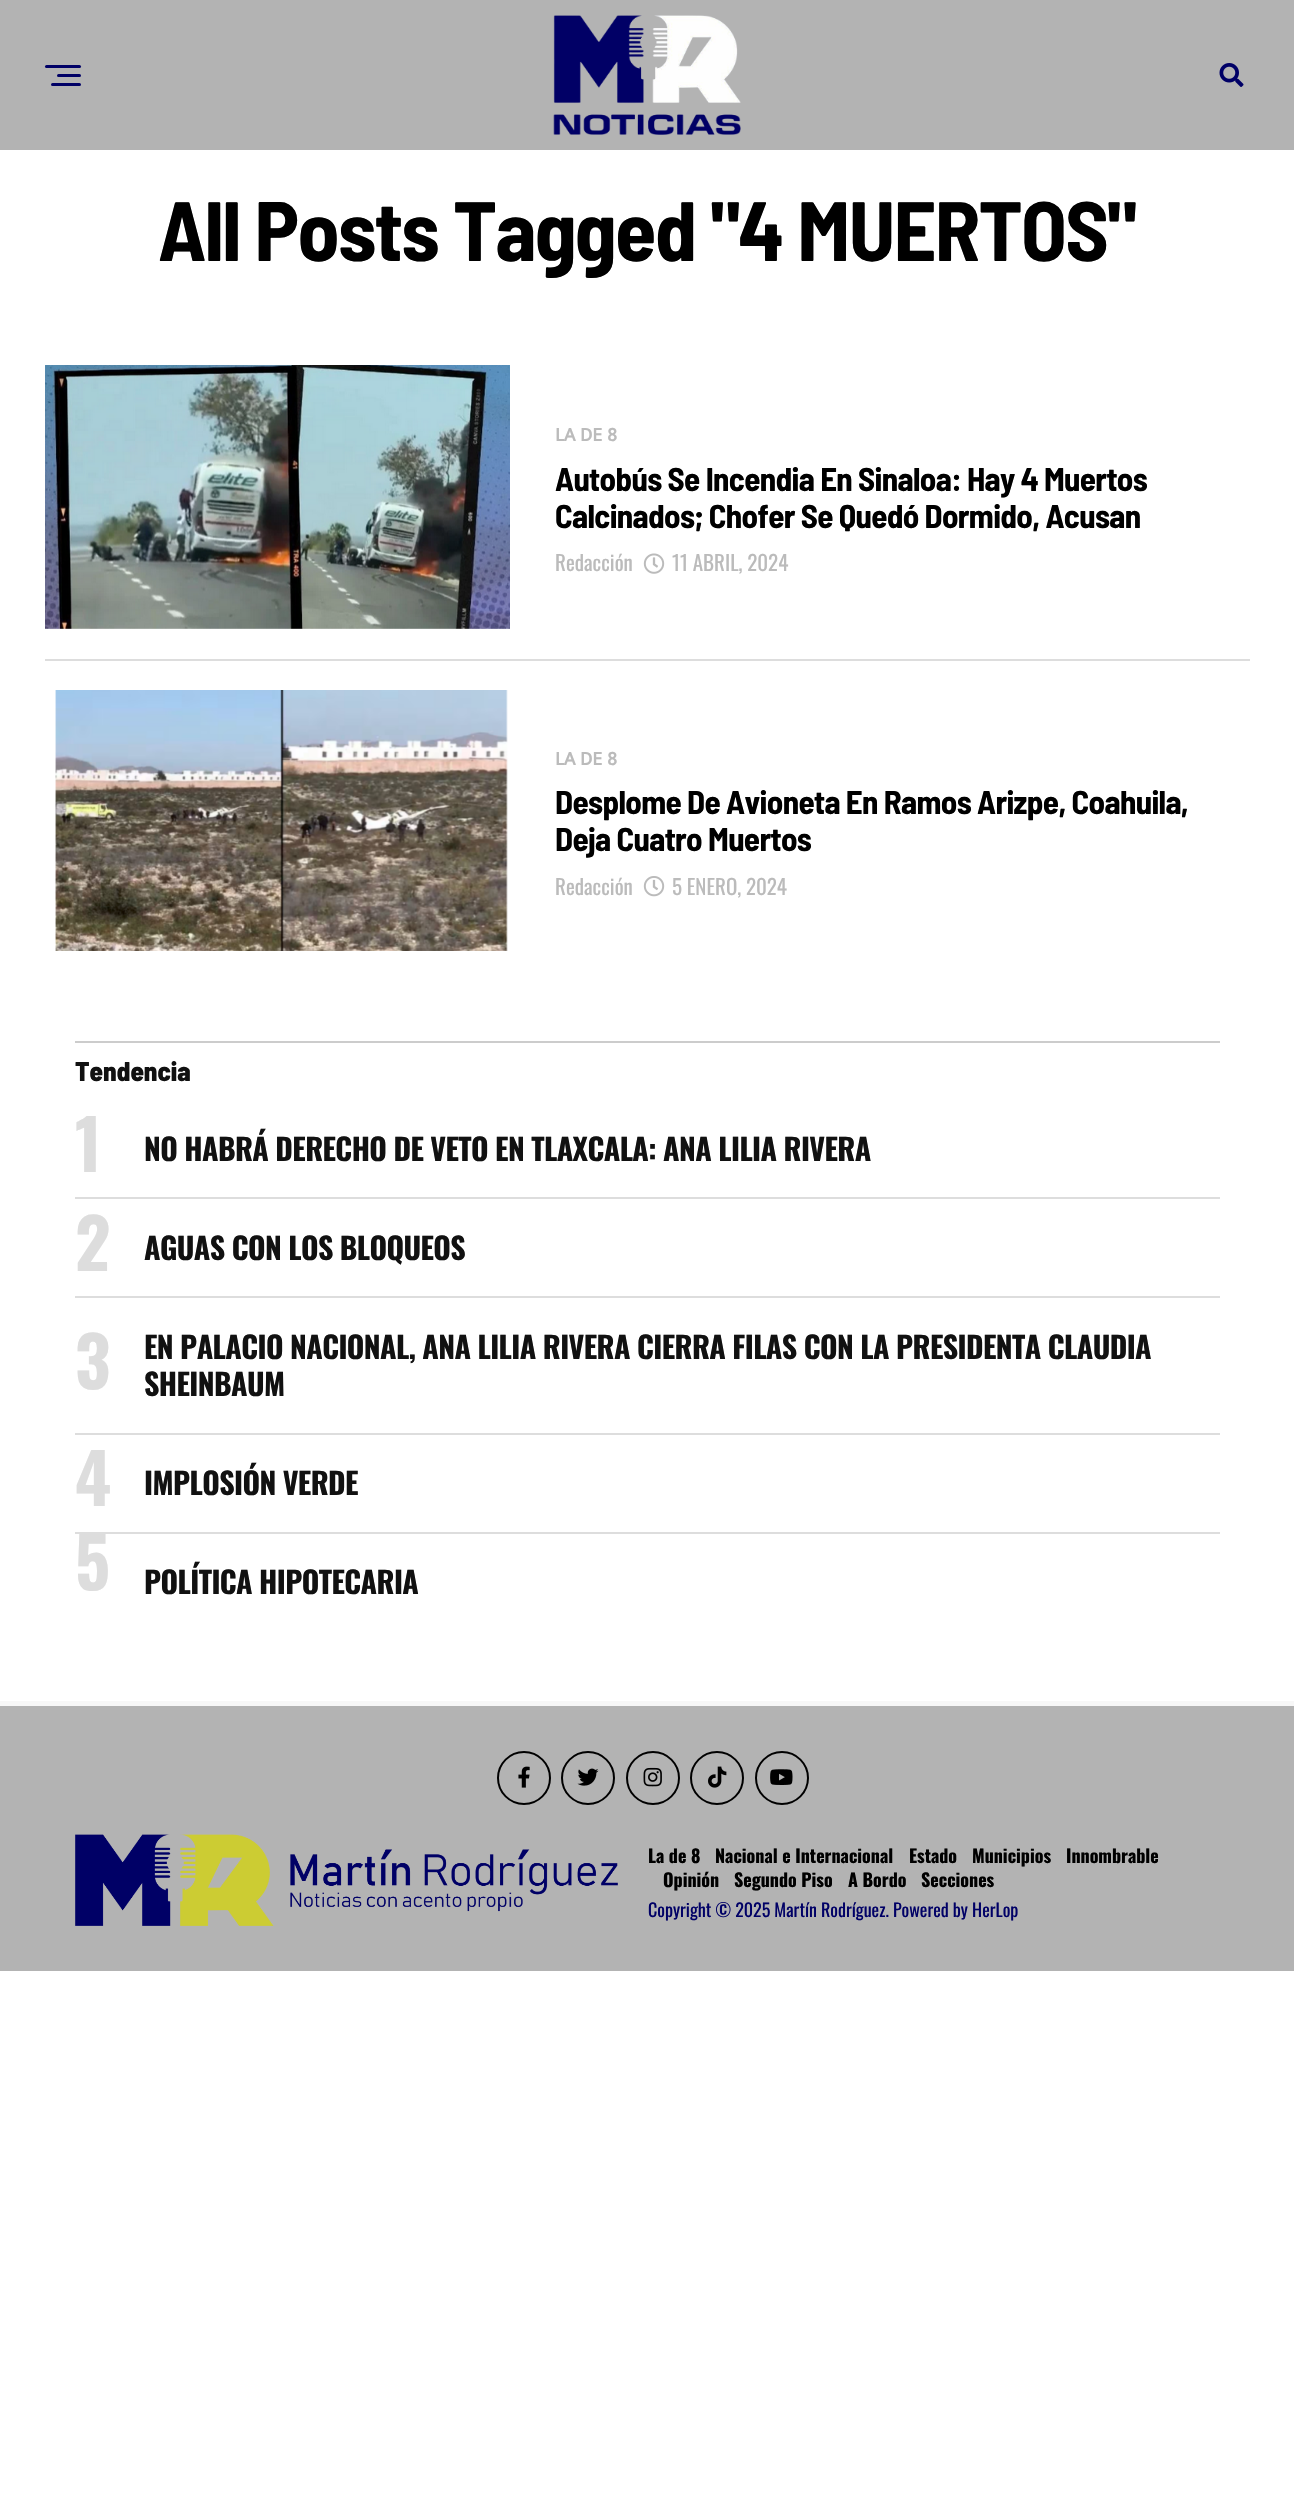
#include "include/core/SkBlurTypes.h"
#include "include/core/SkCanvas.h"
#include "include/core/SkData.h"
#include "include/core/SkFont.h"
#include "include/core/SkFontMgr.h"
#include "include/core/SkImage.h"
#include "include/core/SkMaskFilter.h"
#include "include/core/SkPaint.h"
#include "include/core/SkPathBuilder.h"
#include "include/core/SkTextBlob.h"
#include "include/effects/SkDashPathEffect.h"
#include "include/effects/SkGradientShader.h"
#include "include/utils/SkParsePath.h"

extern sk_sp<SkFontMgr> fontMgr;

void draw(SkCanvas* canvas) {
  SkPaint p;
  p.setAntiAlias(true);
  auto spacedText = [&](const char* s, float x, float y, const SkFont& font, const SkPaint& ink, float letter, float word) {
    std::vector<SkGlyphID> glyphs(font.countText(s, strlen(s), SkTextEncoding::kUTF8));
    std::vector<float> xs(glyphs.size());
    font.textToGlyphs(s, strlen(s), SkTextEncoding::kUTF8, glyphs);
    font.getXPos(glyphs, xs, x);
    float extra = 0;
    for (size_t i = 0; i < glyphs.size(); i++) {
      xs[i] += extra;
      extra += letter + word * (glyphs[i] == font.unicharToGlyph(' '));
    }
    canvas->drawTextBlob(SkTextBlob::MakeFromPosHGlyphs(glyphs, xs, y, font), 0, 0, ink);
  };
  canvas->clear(SK_ColorWHITE);
  p.setColor(SkColorSetRGB(179, 179, 179));
  canvas->drawRect(SkRect::MakeLTRB(0, 0, 1294, 150), p);
  p.setColor(SkColorSetRGB(0, 0, 102));
  canvas->drawRoundRect(SkRect::MakeLTRB(45, 65, 81, 68), 1.5f, 1.5f, p);
  canvas->drawRoundRect(SkRect::MakeLTRB(57, 74, 81, 77), 1.5f, 1.5f, p);
  canvas->drawRoundRect(SkRect::MakeLTRB(51, 83, 81, 86), 1.5f, 1.5f, p);
  canvas->drawImageRect(SkImages::DeferredFromEncodedData(SkData::MakeFromFileName("images/1.png")), SkRect::MakeLTRB(553, 15, 741, 135), SkSamplingOptions());
  canvas->drawImageRect(SkImages::DeferredFromEncodedData(SkData::MakeFromFileName("images/2.png")), SkRect::MakeLTRB(1219, 63, 1244, 87), SkSamplingOptions());
  canvas->drawImageRect(SkImages::DeferredFromEncodedData(SkData::MakeFromFileName("images/3.png")), SkRect::MakeLTRB(45, 365, 510, 629), SkSamplingOptions());
  canvas->drawImageRect(SkImages::DeferredFromEncodedData(SkData::MakeFromFileName("images/4.png")), SkRect::MakeLTRB(643, 553, 665, 574), SkSamplingOptions());
  p.setColor(SkColorSetRGB(221, 221, 221));
  canvas->drawRect(SkRect::MakeLTRB(45, 659, 1250, 661), p);
  canvas->drawImageRect(SkImages::DeferredFromEncodedData(SkData::MakeFromFileName("images/5.png")), SkRect::MakeLTRB(55, 690, 508, 951), SkSamplingOptions());
  canvas->drawImageRect(SkImages::DeferredFromEncodedData(SkData::MakeFromFileName("images/6.png")), SkRect::MakeLTRB(643, 876, 665, 897), SkSamplingOptions());
  p.setColor(SkColorSetRGB(204, 204, 204));
  canvas->drawRect(SkRect::MakeLTRB(75, 1041, 1220, 1043), p);
  p.setColor(SkColorSetRGB(221, 221, 221));
  canvas->drawRect(SkRect::MakeLTRB(75, 1197, 1220, 1199), p);
  canvas->drawRect(SkRect::MakeLTRB(75, 1296, 1220, 1298), p);
  canvas->drawRect(SkRect::MakeLTRB(75, 1433, 1220, 1435), p);
  canvas->drawRect(SkRect::MakeLTRB(75, 1532, 1220, 1534), p);
  p.setColor(SkColorSetRGB(179, 179, 179));
  canvas->drawRect(SkRect::MakeLTRB(0, 1706, 1294, 1971), p);
  p.setColor(SkColorSetRGB(247, 247, 247));
  canvas->drawRect(SkRect::MakeLTRB(0, 1701, 1294, 1706), p);
  p.setStyle(SkPaint::kStroke_Style);
  p.setStrokeWidth(2);
  p.setColor(SK_ColorBLACK);
  canvas->drawCircle(524, 1778, 26, p);
  canvas->drawImageRect(SkImages::DeferredFromEncodedData(SkData::MakeFromFileName("images/7.png")), SkRect::MakeLTRB(518, 1766, 530, 1788), SkSamplingOptions());
  canvas->drawCircle(588, 1778, 26, p);
  canvas->drawImageRect(SkImages::DeferredFromEncodedData(SkData::MakeFromFileName("images/8.png")), SkRect::MakeLTRB(577, 1768, 599, 1786), SkSamplingOptions());
  canvas->drawCircle(653, 1778, 26, p);
  canvas->drawImageRect(SkImages::DeferredFromEncodedData(SkData::MakeFromFileName("images/9.png")), SkRect::MakeLTRB(643, 1767, 662, 1787), SkSamplingOptions());
  canvas->drawCircle(717, 1778, 26, p);
  canvas->drawImageRect(SkImages::DeferredFromEncodedData(SkData::MakeFromFileName("images/10.png")), SkRect::MakeLTRB(708, 1766, 727, 1788), SkSamplingOptions());
  canvas->drawCircle(782, 1778, 26, p);
  canvas->drawImageRect(SkImages::DeferredFromEncodedData(SkData::MakeFromFileName("images/11.png")), SkRect::MakeLTRB(770, 1769, 793, 1785), SkSamplingOptions());
  canvas->drawImageRect(SkImages::DeferredFromEncodedData(SkData::MakeFromFileName("images/12.png")), SkRect::MakeLTRB(75, 1834, 618, 1926), SkSamplingOptions());
  SkFont font1(fontMgr->matchFamilyStyle("Barlow Semi Condensed", SkFontStyle::Bold()), 84);
  font1.setSubpixel(true);
  p.setStyle(SkPaint::kFill_Style);
  spacedText("All Posts Tagged \"4 MUERTOS\"", 158, 261, font1, p, -1.7f, 0);
  SkFont font2(fontMgr->matchFamilyStyle("Shanti", SkFontStyle::Bold()), 18);
  font2.setSubpixel(true);
  p.setColor(SkColorSetRGB(187, 187, 187));
  canvas->drawString("LA DE 8", 555, 441, font2, p);
  SkFont font3(fontMgr->matchFamilyStyle("Barlow Semi Condensed", SkFontStyle::Bold()), 33);
  font3.setSubpixel(true);
  p.setColor(SK_ColorBLACK);
  spacedText("Autobús Se Incendia En Sinaloa: Hay 4 Muertos", 555, 491, font3, p, -0.65f, 0);
  spacedText("Calcinados; Chofer Se Quedó Dormido, Acusan", 555, 528, font3, p, -0.65f, 0);
  SkFont font4(fontMgr->matchFamilyStyle("Oswald", SkFontStyle::Normal()), 21);
  font4.setSubpixel(true);
  p.setColor(SkColorSetRGB(187, 187, 187));
  canvas->drawString("Redacción", 555, 571, font4, p);
  canvas->drawString("11 ABRIL, 2024", 672, 571, font4, p);
  canvas->drawString("LA DE 8", 555, 765, font2, p);
  p.setColor(SK_ColorBLACK);
  spacedText("Desplome De Avioneta En Ramos Arizpe, Coahuila,", 555, 814, font3, p, -0.65f, 0);
  spacedText("Deja Cuatro Muertos", 555, 851, font3, p, -0.65f, 0);
  p.setColor(SkColorSetRGB(187, 187, 187));
  canvas->drawString("Redacción", 555, 895, font4, p);
  canvas->drawString("5 ENERO, 2024", 672, 895, font4, p);
  SkFont font5(fontMgr->matchFamilyStyle("Barlow Semi Condensed", SkFontStyle(800, SkFontStyle::kNormal_Width, SkFontStyle::kUpright_Slant)), 27);
  font5.setSubpixel(true);
  p.setColor(SkColorSetRGB(17, 17, 17));
  canvas->drawString("Tendencia", 75, 1081, font5, p);
  SkFont font6(fontMgr->matchFamilyStyle("Oswald", SkFontStyle::Bold()), 69);
  font6.setSubpixel(true);
  p.setColor(SkColorSetRGB(221, 221, 221));
  canvas->drawString("1", 75, 1172, font6, p);
  SkFont font7(fontMgr->matchFamilyStyle("Oswald", SkFontStyle::Bold()), 30);
  font7.setSubpixel(true);
  p.setColor(SkColorSetRGB(17, 17, 17));
  spacedText("NO HABRÁ DERECHO DE VETO EN TLAXCALA: ANA LILIA RIVERA", 144, 1161, font7, p, -0.6f, 0);
  p.setColor(SkColorSetRGB(221, 221, 221));
  canvas->drawString("2", 75, 1271, font6, p);
  p.setColor(SkColorSetRGB(17, 17, 17));
  spacedText("AGUAS CON LOS BLOQUEOS", 144, 1260, font7, p, -0.6f, 0);
  p.setColor(SkColorSetRGB(221, 221, 221));
  canvas->drawString("3", 75, 1389, font6, p);
  p.setColor(SkColorSetRGB(17, 17, 17));
  spacedText("EN PALACIO NACIONAL, ANA LILIA RIVERA CIERRA FILAS CON LA PRESIDENTA CLAUDIA", 144, 1359, font7, p, -0.6f, 0);
  spacedText("SHEINBAUM", 144, 1396, font7, p, -0.6f, 0);
  p.setColor(SkColorSetRGB(221, 221, 221));
  canvas->drawString("4", 75, 1506, font6, p);
  p.setColor(SkColorSetRGB(17, 17, 17));
  spacedText("IMPLOSIÓN VERDE", 144, 1495, font7, p, -0.6f, 0);
  p.setColor(SkColorSetRGB(221, 221, 221));
  canvas->drawString("5", 75, 1590, font6, p);
  p.setColor(SkColorSetRGB(17, 17, 17));
  spacedText("POLÍTICA HIPOTECARIA", 144, 1594, font7, p, -0.6f, 0);
  SkFont font8(fontMgr->matchFamilyStyle("Oswald", SkFontStyle::Bold()), 18);
  font8.setSubpixel(true);
  p.setColor(SK_ColorBLACK);
  canvas->drawString("La de 8", 648, 1863, font8, p);
  canvas->drawString("Nacional e Internacional", 715, 1863, font8, p);
  canvas->drawString("Estado", 909, 1863, font8, p);
  canvas->drawString("Municipios", 972, 1863, font8, p);
  canvas->drawString("Innombrable", 1066, 1863, font8, p);
  canvas->drawString("Opinión", 663, 1887, font8, p);
  canvas->drawString("Segundo Piso", 734, 1887, font8, p);
  canvas->drawString("A Bordo", 848, 1887, font8, p);
  canvas->drawString("Secciones", 921, 1887, font8, p);
  SkFont font9(fontMgr->matchFamilyStyle("Oswald", SkFontStyle::Normal()), 18);
  font9.setSubpixel(true);
  p.setColor(SkColorSetRGB(0, 0, 102));
  canvas->drawString("Copyright © 2025 Martín Rodríguez. Powered by HerLop", 648, 1917, font9, p);
}
